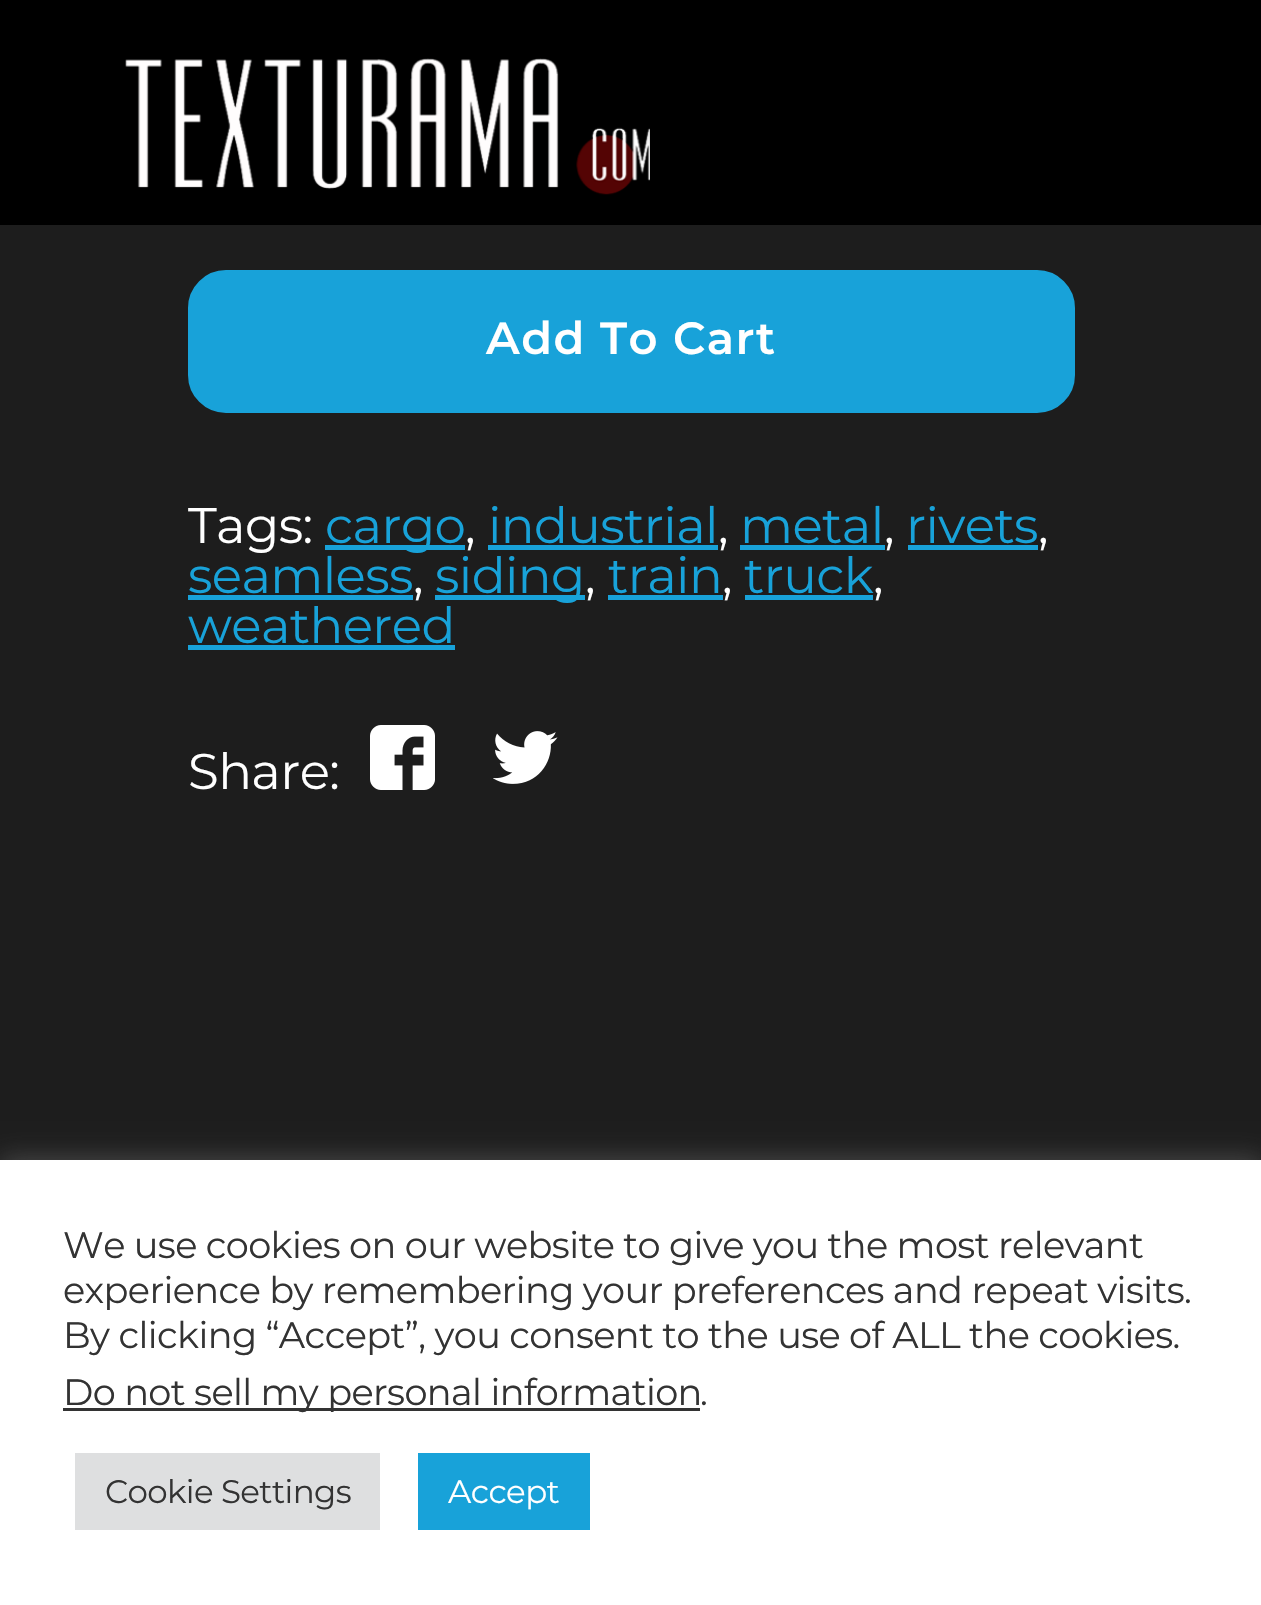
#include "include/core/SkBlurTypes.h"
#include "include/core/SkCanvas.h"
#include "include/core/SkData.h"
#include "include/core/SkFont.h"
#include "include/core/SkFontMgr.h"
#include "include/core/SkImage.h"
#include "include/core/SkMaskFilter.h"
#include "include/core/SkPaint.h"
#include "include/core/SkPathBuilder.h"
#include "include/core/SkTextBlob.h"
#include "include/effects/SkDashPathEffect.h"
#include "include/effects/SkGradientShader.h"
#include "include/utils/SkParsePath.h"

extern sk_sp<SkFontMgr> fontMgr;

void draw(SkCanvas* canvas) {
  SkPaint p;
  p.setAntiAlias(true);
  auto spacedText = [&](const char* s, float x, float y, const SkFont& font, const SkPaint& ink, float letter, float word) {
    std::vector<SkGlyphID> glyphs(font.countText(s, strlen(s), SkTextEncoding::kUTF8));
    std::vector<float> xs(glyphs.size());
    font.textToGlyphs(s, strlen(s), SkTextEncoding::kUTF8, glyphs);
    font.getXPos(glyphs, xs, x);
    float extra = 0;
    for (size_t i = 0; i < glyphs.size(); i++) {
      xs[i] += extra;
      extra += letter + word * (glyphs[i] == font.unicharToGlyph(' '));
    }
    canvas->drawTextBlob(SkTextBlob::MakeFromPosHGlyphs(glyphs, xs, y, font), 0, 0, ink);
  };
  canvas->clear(SkColorSetRGB(29, 29, 29));
  p.setColor(SK_ColorBLACK);
  canvas->drawRect(SkRect::MakeLTRB(0, 0, 1261, 225), p);
  canvas->drawImageRect(SkImages::DeferredFromEncodedData(SkData::MakeFromFileName("images/1.png")), SkRect::MakeLTRB(125, 58, 650, 195), SkSamplingOptions());
  p.setColor(SkColorSetRGB(24, 162, 217));
  canvas->drawRoundRect(SkRect::MakeLTRB(189.5f, 271.5f, 1073.5f, 411.5f), 36.5f, 36.5f, p);
  p.setStyle(SkPaint::kStroke_Style);
  p.setStrokeWidth(3);
  canvas->drawRoundRect(SkRect::MakeLTRB(189.5f, 271.5f, 1073.5f, 411.5f), 36.5f, 36.5f, p);
  p.setStyle(SkPaint::kFill_Style);
  canvas->drawRect(SkRect::MakeLTRB(325, 545, 465, 550), p);
  canvas->drawRect(SkRect::MakeLTRB(488, 545, 718, 550), p);
  canvas->drawRect(SkRect::MakeLTRB(740, 545, 885, 550), p);
  canvas->drawRect(SkRect::MakeLTRB(908, 545, 1038, 550), p);
  canvas->drawRect(SkRect::MakeLTRB(188, 595, 413, 600), p);
  canvas->drawRect(SkRect::MakeLTRB(435, 595, 585, 600), p);
  canvas->drawRect(SkRect::MakeLTRB(608, 595, 723, 600), p);
  canvas->drawRect(SkRect::MakeLTRB(745, 595, 873, 600), p);
  canvas->drawRect(SkRect::MakeLTRB(188, 645, 455, 650), p);
  canvas->drawImageRect(SkImages::DeferredFromEncodedData(SkData::MakeFromFileName("images/2.png")), SkRect::MakeLTRB(370, 725, 435, 790), SkSamplingOptions());
  canvas->drawImageRect(SkImages::DeferredFromEncodedData(SkData::MakeFromFileName("images/3.png")), SkRect::MakeLTRB(493, 731, 558, 784), SkSamplingOptions());
  p.setColor(SkColorSetARGB(77, 172, 171, 171));
  p.setMaskFilter(SkMaskFilter::MakeBlur(kNormal_SkBlurStyle, 12.5f));
  canvas->drawRect(SkRect::MakeLTRB(0, 1158, 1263, 1603), p);
  p.setMaskFilter(nullptr);
  p.setColor(SK_ColorWHITE);
  canvas->drawRect(SkRect::MakeLTRB(0, 1160, 1261, 1605), p);
  p.setColor(SkColorSetRGB(51, 51, 51));
  canvas->drawRect(SkRect::MakeLTRB(63, 1408, 700, 1411), p);
  p.setColor(SkColorSetRGB(222, 223, 224));
  canvas->drawRect(SkRect::MakeLTRB(75, 1453, 380, 1530), p);
  p.setColor(SkColorSetRGB(24, 162, 217));
  canvas->drawRect(SkRect::MakeLTRB(418, 1453, 590, 1530), p);
  SkFont font1(fontMgr->matchFamilyStyle("Montserrat", SkFontStyle(600, SkFontStyle::kNormal_Width, SkFontStyle::kUpright_Slant)), 45);
  font1.setSubpixel(true);
  p.setColor(SK_ColorWHITE);
  spacedText("Add To Cart", 486, 354, font1, p, 1.5f, 0);
  SkFont font2(fontMgr->matchFamilyStyle("Montserrat", SkFontStyle::Normal()), 50);
  font2.setSubpixel(true);
  spacedText("Tags:", 188, 543, font2, p, -0.6f, 0);
  p.setColor(SkColorSetRGB(24, 162, 217));
  spacedText("cargo", 325, 543, font2, p, -0.6f, 0);
  p.setColor(SK_ColorWHITE);
  spacedText(",", 465, 543, font2, p, -0.6f, 0);
  p.setColor(SkColorSetRGB(24, 162, 217));
  spacedText("industrial", 488, 543, font2, p, -0.6f, 0);
  p.setColor(SK_ColorWHITE);
  spacedText(",", 718, 543, font2, p, -0.6f, 0);
  p.setColor(SkColorSetRGB(24, 162, 217));
  spacedText("metal", 740, 543, font2, p, -0.6f, 0);
  p.setColor(SK_ColorWHITE);
  spacedText(",", 884, 543, font2, p, -0.6f, 0);
  p.setColor(SkColorSetRGB(24, 162, 217));
  spacedText("rivets", 906, 543, font2, p, -0.6f, 0);
  p.setColor(SK_ColorWHITE);
  spacedText(",", 1038, 543, font2, p, -0.6f, 0);
  p.setColor(SkColorSetRGB(24, 162, 217));
  spacedText("seamless", 188, 593, font2, p, -0.6f, 0);
  p.setColor(SK_ColorWHITE);
  spacedText(",", 413, 593, font2, p, -0.6f, 0);
  p.setColor(SkColorSetRGB(24, 162, 217));
  spacedText("siding", 435, 593, font2, p, -0.6f, 0);
  p.setColor(SK_ColorWHITE);
  spacedText(",", 585, 593, font2, p, -0.6f, 0);
  p.setColor(SkColorSetRGB(24, 162, 217));
  spacedText("train", 608, 593, font2, p, -0.6f, 0);
  p.setColor(SK_ColorWHITE);
  spacedText(",", 722, 593, font2, p, -0.6f, 0);
  p.setColor(SkColorSetRGB(24, 162, 217));
  spacedText("truck", 744, 593, font2, p, -0.6f, 0);
  p.setColor(SK_ColorWHITE);
  spacedText(",", 873, 593, font2, p, -0.6f, 0);
  p.setColor(SkColorSetRGB(24, 162, 217));
  spacedText("weathered", 188, 643, font2, p, -0.6f, 0);
  p.setColor(SK_ColorWHITE);
  spacedText("Share:", 188, 789, font2, p, -0.6f, 0);
  SkFont font3(fontMgr->matchFamilyStyle("Montserrat", SkFontStyle::Normal()), 36.7f);
  font3.setSubpixel(true);
  p.setColor(SkColorSetRGB(51, 51, 51));
  spacedText("We use cookies on our website to give you the most relevant", 63, 1258, font3, p, -0.6f, 0);
  spacedText("experience by remembering your preferences and repeat visits.", 63, 1303, font3, p, -0.6f, 0);
  spacedText("By clicking “Accept”, you consent to the use of ALL the cookies.", 63, 1348, font3, p, -0.6f, 0);
  spacedText("Do not sell my personal information", 63, 1405, font3, p, -0.6f, 0);
  spacedText(".", 700, 1405, font3, p, -0.6f, 0);
  SkFont font4(fontMgr->matchFamilyStyle("Montserrat", SkFontStyle::Normal()), 32.5f);
  font4.setSubpixel(true);
  spacedText("Cookie Settings", 105, 1503, font4, p, -0.6f, 0);
  p.setColor(SK_ColorWHITE);
  spacedText("Accept", 448, 1503, font4, p, -0.6f, 0);
}
